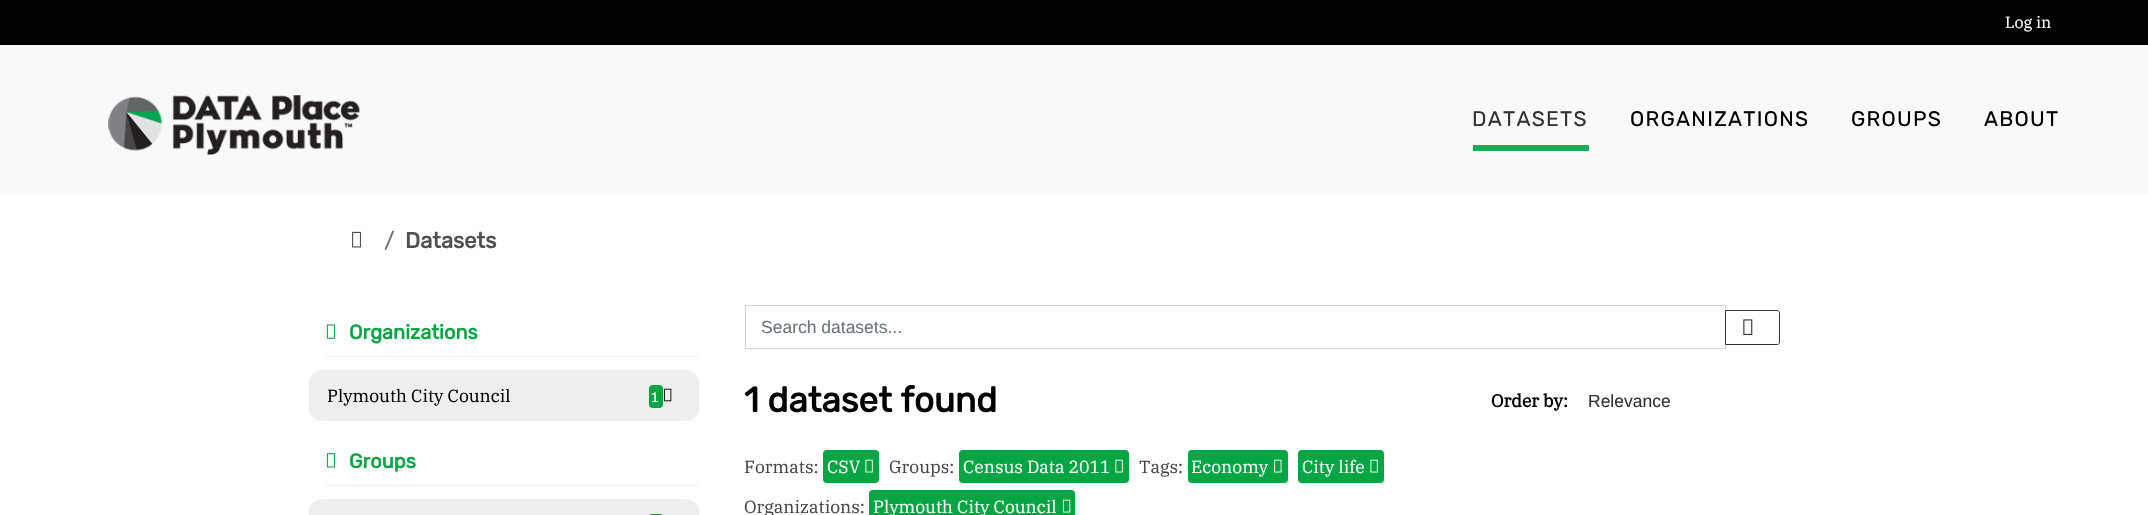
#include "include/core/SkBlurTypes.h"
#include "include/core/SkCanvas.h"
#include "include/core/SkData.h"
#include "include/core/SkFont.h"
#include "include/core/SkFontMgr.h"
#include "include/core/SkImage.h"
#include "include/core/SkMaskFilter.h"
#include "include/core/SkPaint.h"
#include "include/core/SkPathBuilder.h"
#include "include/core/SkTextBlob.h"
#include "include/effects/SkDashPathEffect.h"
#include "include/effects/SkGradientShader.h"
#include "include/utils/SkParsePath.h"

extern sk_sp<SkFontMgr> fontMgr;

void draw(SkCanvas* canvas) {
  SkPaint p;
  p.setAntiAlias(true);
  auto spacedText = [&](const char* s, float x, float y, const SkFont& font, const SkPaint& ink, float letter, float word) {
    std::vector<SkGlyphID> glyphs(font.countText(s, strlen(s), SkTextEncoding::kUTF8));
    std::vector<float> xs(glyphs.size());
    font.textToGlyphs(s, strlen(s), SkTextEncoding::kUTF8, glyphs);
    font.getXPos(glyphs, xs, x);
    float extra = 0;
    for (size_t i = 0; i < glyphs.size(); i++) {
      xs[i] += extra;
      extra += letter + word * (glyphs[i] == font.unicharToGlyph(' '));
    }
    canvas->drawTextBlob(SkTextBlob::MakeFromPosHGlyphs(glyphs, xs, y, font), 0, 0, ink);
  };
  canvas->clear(SK_ColorWHITE);
  p.setColor(SK_ColorBLACK);
  canvas->drawRect(SkRect::MakeLTRB(0, 0, 2148, 45), p);
  p.setColor(SkColorSetRGB(249, 249, 249));
  canvas->drawRect(SkRect::MakeLTRB(0, 45, 2148, 193), p);
  canvas->drawImageRect(SkImages::DeferredFromEncodedData(SkData::MakeFromFileName("images/1.png")), SkRect::MakeLTRB(108, 95, 360, 155), SkSamplingOptions());
  p.setColor(SkColorSetRGB(25, 174, 83));
  canvas->drawRect(SkRect::MakeLTRB(1473, 145, 1589, 151), p);
  canvas->drawImageRect(SkImages::DeferredFromEncodedData(SkData::MakeFromFileName("images/2.png")), SkRect::MakeLTRB(352, 231, 362, 248), SkSamplingOptions());
  p.setColor(SkColorSetRGB(238, 238, 238));
  canvas->drawRect(SkRect::MakeLTRB(325, 356, 699, 357), p);
  canvas->drawImageRect(SkImages::DeferredFromEncodedData(SkData::MakeFromFileName("images/3.png")), SkRect::MakeLTRB(326, 324, 336, 339), SkSamplingOptions());
  canvas->drawRoundRect(SkRect::MakeLTRB(309, 370, 699, 421), 13, 13, p);
  p.setColor(SkColorSetRGB(0, 166, 65));
  canvas->drawRoundRect(SkRect::MakeLTRB(649, 385, 663, 408), 4, 4, p);
  canvas->drawImageRect(SkImages::DeferredFromEncodedData(SkData::MakeFromFileName("images/4.png")), SkRect::MakeLTRB(664, 388, 672, 402), SkSamplingOptions());
  p.setColor(SkColorSetRGB(238, 238, 238));
  canvas->drawRect(SkRect::MakeLTRB(325, 485, 699, 486), p);
  canvas->drawImageRect(SkImages::DeferredFromEncodedData(SkData::MakeFromFileName("images/5.png")), SkRect::MakeLTRB(326, 453, 336, 468), SkSamplingOptions());
  canvas->drawRoundRect(SkRect::MakeLTRB(309, 499, 699, 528), 13, 13, p);
  p.setColor(SkColorSetRGB(0, 166, 65));
  canvas->drawRoundRect(SkRect::MakeLTRB(649, 514, 663, 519), 4, 4, p);
  p.setStyle(SkPaint::kStroke_Style);
  p.setStrokeWidth(1);
  p.setColor(SkColorSetRGB(206, 212, 218));
  canvas->drawRect(SkRect::MakeLTRB(745.5f, 305.5f, 1725.5f, 348.5f), p);
  p.setColor(SkColorSetRGB(51, 51, 51));
  canvas->drawPath(SkPathBuilder().moveTo(1725.5f, 310.5f).lineTo(1777.5f, 310.5f).cubicTo(1778.5f, 310.5f, 1779.5f, 311.5f, 1779.5f, 312.5f).lineTo(1779.5f, 342.5f).cubicTo(1779.5f, 343.5f, 1778.5f, 344.5f, 1777.5f, 344.5f).lineTo(1725.5f, 344.5f).close().detach(), p);
  canvas->drawImageRect(SkImages::DeferredFromEncodedData(SkData::MakeFromFileName("images/6.png")), SkRect::MakeLTRB(1743, 319, 1753, 335), SkSamplingOptions());
  p.setStyle(SkPaint::kFill_Style);
  p.setColor(SkColorSetRGB(0, 166, 65));
  canvas->drawRoundRect(SkRect::MakeLTRB(823, 450, 879, 483), 4, 4, p);
  canvas->drawImageRect(SkImages::DeferredFromEncodedData(SkData::MakeFromFileName("images/7.png")), SkRect::MakeLTRB(865, 459, 873, 473), SkSamplingOptions());
  canvas->drawRoundRect(SkRect::MakeLTRB(959, 450, 1129, 483), 4, 4, p);
  canvas->drawImageRect(SkImages::DeferredFromEncodedData(SkData::MakeFromFileName("images/7.png")), SkRect::MakeLTRB(1115, 459, 1123, 473), SkSamplingOptions());
  canvas->drawRoundRect(SkRect::MakeLTRB(1188, 450, 1288, 483), 4, 4, p);
  canvas->drawImageRect(SkImages::DeferredFromEncodedData(SkData::MakeFromFileName("images/8.png")), SkRect::MakeLTRB(1274, 459, 1282, 473), SkSamplingOptions());
  canvas->drawRoundRect(SkRect::MakeLTRB(1298, 450, 1384, 483), 4, 4, p);
  canvas->drawImageRect(SkImages::DeferredFromEncodedData(SkData::MakeFromFileName("images/7.png")), SkRect::MakeLTRB(1370, 459, 1378, 473), SkSamplingOptions());
  canvas->drawRoundRect(SkRect::MakeLTRB(869, 490, 1075, 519), 4, 4, p);
  canvas->drawImageRect(SkImages::DeferredFromEncodedData(SkData::MakeFromFileName("images/9.png")), SkRect::MakeLTRB(1062, 499, 1071, 513), SkSamplingOptions());
  SkFont font1(fontMgr->matchFamilyStyle("IBM Plex Serif", SkFontStyle::Normal()), 16);
  font1.setSubpixel(true);
  p.setColor(SK_ColorWHITE);
  canvas->drawString("Log in", 2005, 28, font1, p);
  SkFont font2(fontMgr->matchFamilyStyle("Rubik", SkFontStyle(300, SkFontStyle::kNormal_Width, SkFontStyle::kUpright_Slant)), 21);
  font2.setSubpixel(true);
  p.setColor(SkColorSetRGB(51, 51, 51));
  spacedText("DATASETS", 1472, 126, font2, p, 1.25f, 0);
  p.setColor(SK_ColorBLACK);
  spacedText("ORGANIZATIONS", 1630, 126, font2, p, 1.25f, 0);
  spacedText("GROUPS", 1851, 126, font2, p, 1.25f, 0);
  spacedText("ABOUT", 1984, 126, font2, p, 1.25f, 0);
  SkFont font3(fontMgr->matchFamilyStyle("Rubik", SkFontStyle(300, SkFontStyle::kNormal_Width, SkFontStyle::kUpright_Slant)), 22);
  font3.setSubpixel(true);
  p.setColor(SkColorSetRGB(108, 117, 125));
  canvas->drawString("/", 384, 248, font3, p);
  SkFont font4(fontMgr->matchFamilyStyle("Rubik", SkFontStyle::Bold()), 22);
  font4.setSubpixel(true);
  p.setColor(SkColorSetRGB(80, 80, 80));
  canvas->drawString("Datasets", 405, 248, font4, p);
  SkFont font5(fontMgr->matchFamilyStyle("Rubik", SkFontStyle::Bold()), 20);
  font5.setSubpixel(true);
  p.setColor(SkColorSetRGB(0, 166, 65));
  canvas->drawString("Organizations", 349, 339, font5, p);
  SkFont font6(fontMgr->matchFamilyStyle("IBM Plex Serif", SkFontStyle::Normal()), 17.5f);
  font6.setSubpixel(true);
  p.setColor(SK_ColorBLACK);
  canvas->drawString("Plymouth City Council", 327, 402, font6, p);
  SkFont font7(fontMgr->matchFamilyStyle("IBM Plex Serif", SkFontStyle::Bold()), 13);
  font7.setSubpixel(true);
  p.setColor(SK_ColorWHITE);
  canvas->drawString("1", 651, 402, font7, p);
  p.setColor(SkColorSetRGB(0, 166, 65));
  canvas->drawString("Groups", 349, 468, font5, p);
  SkFont font8(fontMgr->matchFamilyStyle("Liberation Sans", SkFontStyle::Normal()), 17.5f);
  font8.setSubpixel(true);
  p.setColor(SkColorSetRGB(108, 117, 125));
  canvas->drawString("Search datasets...", 761, 333, font8, p);
  SkFont font9(fontMgr->matchFamilyStyle("Rubik", SkFontStyle::Bold()), 35);
  font9.setSubpixel(true);
  p.setColor(SK_ColorBLACK);
  canvas->drawString("1 dataset found", 744, 412, font9, p);
  SkFont font10(fontMgr->matchFamilyStyle("IBM Plex Serif", SkFontStyle::Bold()), 17.5f);
  font10.setSubpixel(true);
  canvas->drawString("Order by:", 1491, 407, font10, p);
  p.setColor(SkColorSetRGB(51, 51, 51));
  canvas->drawString("Relevance", 1588, 407, font8, p);
  p.setColor(SkColorSetRGB(68, 68, 68));
  canvas->drawString("Formats:", 744, 473, font6, p);
  p.setColor(SK_ColorWHITE);
  canvas->drawString("CSV", 827, 473, font6, p);
  p.setColor(SkColorSetRGB(68, 68, 68));
  canvas->drawString("Groups:", 889, 473, font6, p);
  p.setColor(SK_ColorWHITE);
  canvas->drawString("Census Data 2011", 963, 473, font6, p);
  p.setColor(SkColorSetRGB(68, 68, 68));
  canvas->drawString("Tags:", 1139, 473, font6, p);
  p.setColor(SK_ColorWHITE);
  canvas->drawString("Economy", 1191, 473, font6, p);
  canvas->drawString("City life", 1302, 473, font6, p);
  p.setColor(SkColorSetRGB(68, 68, 68));
  canvas->drawString("Organizations:", 744, 513, font6, p);
  p.setColor(SK_ColorWHITE);
  canvas->drawString("Plymouth City Council", 873, 513, font6, p);
}
